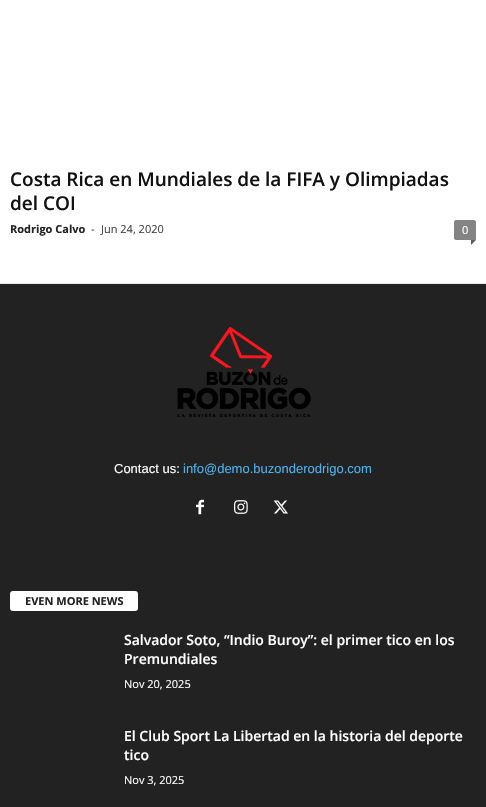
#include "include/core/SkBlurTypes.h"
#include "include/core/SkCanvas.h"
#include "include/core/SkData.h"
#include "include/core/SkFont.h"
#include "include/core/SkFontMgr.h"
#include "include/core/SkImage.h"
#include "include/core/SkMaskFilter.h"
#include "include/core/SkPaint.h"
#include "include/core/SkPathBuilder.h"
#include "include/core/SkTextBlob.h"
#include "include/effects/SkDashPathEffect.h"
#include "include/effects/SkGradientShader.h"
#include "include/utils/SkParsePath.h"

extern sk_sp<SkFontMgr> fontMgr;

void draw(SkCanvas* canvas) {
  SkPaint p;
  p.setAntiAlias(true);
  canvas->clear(SK_ColorWHITE);
  p.setColor(SkColorSetRGB(230, 230, 230));
  canvas->drawRect(SkRect::MakeLTRB(0, 283, 486, 284), p);
  p.setColor(SkColorSetRGB(132, 132, 132));
  canvas->drawPath(SkPathBuilder().moveTo(456, 220).lineTo(474, 220).cubicTo(475, 220, 476, 221, 476, 222).lineTo(476, 240).lineTo(456, 240).cubicTo(455, 240, 454, 239, 454, 238).lineTo(454, 222).cubicTo(454, 221, 455, 220, 456, 220).close().detach(), p);
  p.setColor(SkColorSetRGB(91, 91, 91));
  canvas->drawPath(SkPathBuilder().moveTo(471, 240).lineTo(476, 240).lineTo(471, 245).close().detach(), p);
  p.setColor(SkColorSetRGB(34, 34, 34));
  canvas->drawRect(SkRect::MakeLTRB(0, 284, 486, 807), p);
  canvas->drawImageRect(SkImages::DeferredFromEncodedData(SkData::MakeFromFileName("images/1.png")), SkRect::MakeLTRB(177, 327, 311, 417), SkSamplingOptions());
  canvas->drawImageRect(SkImages::DeferredFromEncodedData(SkData::MakeFromFileName("images/2.png")), SkRect::MakeLTRB(196, 499, 204, 515), SkSamplingOptions());
  canvas->drawImageRect(SkImages::DeferredFromEncodedData(SkData::MakeFromFileName("images/3.png")), SkRect::MakeLTRB(234, 500, 248, 514), SkSamplingOptions());
  canvas->drawImageRect(SkImages::DeferredFromEncodedData(SkData::MakeFromFileName("images/4.png")), SkRect::MakeLTRB(273, 500, 288, 514), SkSamplingOptions());
  p.setColor(SK_ColorWHITE);
  canvas->drawRoundRect(SkRect::MakeLTRB(10, 591, 138, 611), 3, 3, p);
  SkFont font1(fontMgr->matchFamilyStyle("Open Sans", SkFontStyle(600, SkFontStyle::kNormal_Width, SkFontStyle::kUpright_Slant)), 19);
  font1.setSubpixel(true);
  p.setColor(SkColorSetRGB(17, 17, 17));
  canvas->drawString("Costa Rica en Mundiales de la FIFA y Olimpiadas", 10, 186, font1, p);
  canvas->drawString("del COI", 10, 210, font1, p);
  SkFont font2(fontMgr->matchFamilyStyle("Open Sans", SkFontStyle::Bold()), 11);
  font2.setSubpixel(true);
  p.setColor(SkColorSetRGB(34, 34, 34));
  canvas->drawString("Rodrigo Calvo", 10, 233, font2, p);
  SkFont font3(fontMgr->matchFamilyStyle("Open Sans", SkFontStyle::Normal()), 11);
  font3.setSubpixel(true);
  p.setColor(SkColorSetRGB(68, 68, 68));
  canvas->drawString("-", 91, 233, font3, p);
  canvas->drawString("Jun 24, 2020", 101, 233, font3, p);
  p.setColor(SK_ColorWHITE);
  canvas->drawString("0", 462, 234, font3, p);
  SkFont font4(fontMgr->matchFamilyStyle("Liberation Sans", SkFontStyle::Normal()), 13);
  font4.setSubpixel(true);
  canvas->drawString("Contact us:", 114, 473, font4, p);
  p.setColor(SkColorSetRGB(77, 178, 236));
  canvas->drawString("info@demo.buzonderodrigo.com", 183, 473, font4, p);
  p.setColor(SkColorSetRGB(34, 34, 34));
  canvas->drawString("EVEN MORE NEWS", 25, 605, font2, p);
  SkFont font5(fontMgr->matchFamilyStyle("Open Sans", SkFontStyle(600, SkFontStyle::kNormal_Width, SkFontStyle::kUpright_Slant)), 14);
  font5.setSubpixel(true);
  p.setColor(SK_ColorWHITE);
  canvas->drawString("Salvador Soto, “Indio Buroy”: el primer tico en los", 124, 645, font5, p);
  canvas->drawString("Premundiales", 124, 664, font5, p);
  canvas->drawString("Nov 20, 2025", 124, 688, font3, p);
  canvas->drawString("El Club Sport La Libertad en la historia del deporte", 124, 741, font5, p);
  canvas->drawString("tico", 124, 760, font5, p);
  canvas->drawString("Nov 3, 2025", 124, 784, font3, p);
}
